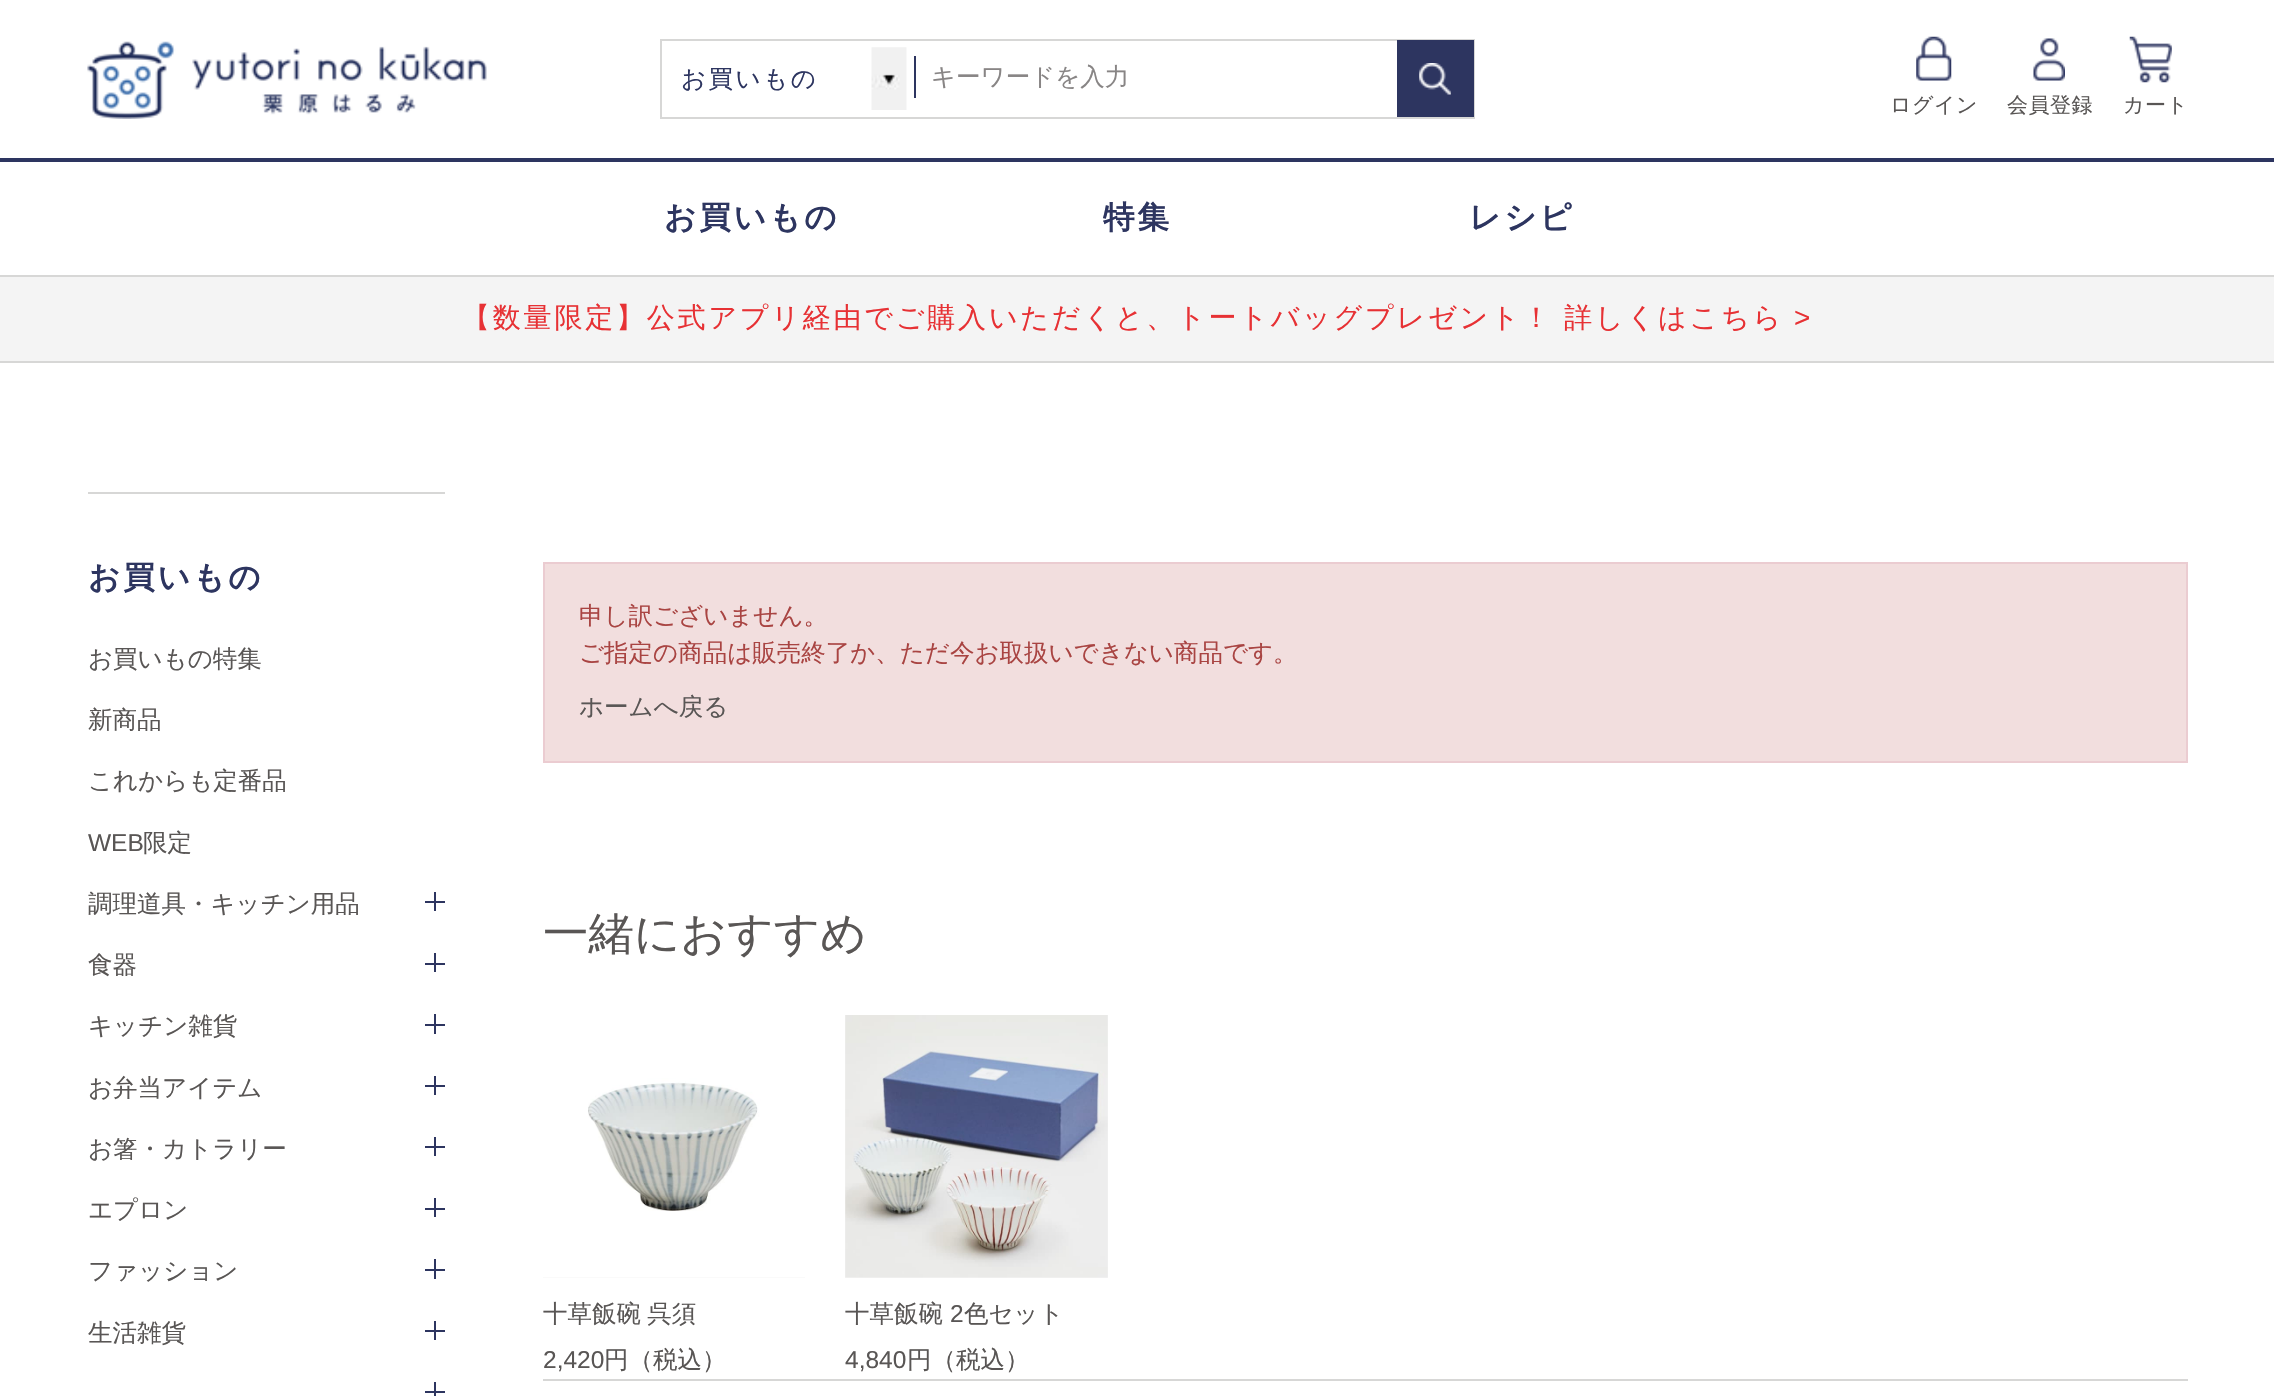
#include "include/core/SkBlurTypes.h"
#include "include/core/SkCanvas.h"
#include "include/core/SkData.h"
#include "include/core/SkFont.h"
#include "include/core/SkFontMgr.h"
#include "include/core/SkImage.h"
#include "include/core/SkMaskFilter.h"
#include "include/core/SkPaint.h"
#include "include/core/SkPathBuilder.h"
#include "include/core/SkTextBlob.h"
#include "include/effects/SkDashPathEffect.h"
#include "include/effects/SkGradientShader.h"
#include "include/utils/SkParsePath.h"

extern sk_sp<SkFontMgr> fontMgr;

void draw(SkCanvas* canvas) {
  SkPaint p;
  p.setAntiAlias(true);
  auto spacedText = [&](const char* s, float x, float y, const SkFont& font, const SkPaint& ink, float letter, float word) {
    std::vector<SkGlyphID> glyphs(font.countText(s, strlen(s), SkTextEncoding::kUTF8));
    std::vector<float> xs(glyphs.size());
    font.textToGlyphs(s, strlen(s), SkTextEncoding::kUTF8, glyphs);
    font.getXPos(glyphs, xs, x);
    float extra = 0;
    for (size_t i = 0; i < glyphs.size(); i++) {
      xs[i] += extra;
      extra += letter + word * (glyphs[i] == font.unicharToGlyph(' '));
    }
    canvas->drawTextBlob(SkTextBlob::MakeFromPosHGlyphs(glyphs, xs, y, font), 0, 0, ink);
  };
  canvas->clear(SK_ColorWHITE);
  p.setColor(SkColorSetRGB(45, 53, 96));
  canvas->drawRect(SkRect::MakeLTRB(0, 158, 2274, 162), p);
  canvas->drawImageRect(SkImages::DeferredFromEncodedData(SkData::MakeFromFileName("images/1.png")), SkRect::MakeLTRB(87, 41, 487, 119), SkSamplingOptions());
  p.setStyle(SkPaint::kStroke_Style);
  p.setStrokeWidth(2);
  p.setColor(SkColorSetRGB(215, 215, 214));
  canvas->drawRect(SkRect::MakeLTRB(661, 40, 1474, 118), p);
  canvas->drawImageRect(SkImages::DeferredFromEncodedData(SkData::MakeFromFileName("images/2.png")), SkRect::MakeLTRB(871, 47, 907, 110), SkSamplingOptions());
  p.setStyle(SkPaint::kFill_Style);
  p.setColor(SkColorSetRGB(45, 53, 96));
  canvas->drawRect(SkRect::MakeLTRB(914, 56, 916, 98), p);
  canvas->drawRect(SkRect::MakeLTRB(1397, 40, 1474, 117), p);
  canvas->drawImageRect(SkImages::DeferredFromEncodedData(SkData::MakeFromFileName("images/3.png")), SkRect::MakeLTRB(1419, 63, 1451, 95), SkSamplingOptions());
  canvas->drawImageRect(SkImages::DeferredFromEncodedData(SkData::MakeFromFileName("images/4.png")), SkRect::MakeLTRB(1916, 36, 1952, 81), SkSamplingOptions());
  canvas->drawImageRect(SkImages::DeferredFromEncodedData(SkData::MakeFromFileName("images/5.png")), SkRect::MakeLTRB(2033, 38, 2065, 81), SkSamplingOptions());
  canvas->drawImageRect(SkImages::DeferredFromEncodedData(SkData::MakeFromFileName("images/6.png")), SkRect::MakeLTRB(2129, 36, 2172, 83), SkSamplingOptions());
  p.setColor(SkColorSetRGB(215, 215, 214));
  canvas->drawRect(SkRect::MakeLTRB(0, 361, 2274, 363), p);
  p.setColor(SkColorSetRGB(244, 244, 244));
  canvas->drawRect(SkRect::MakeLTRB(0, 277, 2274, 361), p);
  p.setColor(SkColorSetRGB(215, 215, 214));
  canvas->drawRect(SkRect::MakeLTRB(0, 275, 2274, 277), p);
  canvas->drawRect(SkRect::MakeLTRB(88, 492, 445, 494), p);
  p.setColor(SkColorSetRGB(45, 53, 96));
  canvas->drawRect(SkRect::MakeLTRB(425, 901, 445, 903), p);
  canvas->drawRect(SkRect::MakeLTRB(434, 892, 436, 911), p);
  canvas->drawRect(SkRect::MakeLTRB(425, 963, 445, 965), p);
  canvas->drawRect(SkRect::MakeLTRB(434, 953, 436, 972), p);
  canvas->drawRect(SkRect::MakeLTRB(425, 1024, 445, 1026), p);
  canvas->drawRect(SkRect::MakeLTRB(434, 1014, 436, 1034), p);
  canvas->drawRect(SkRect::MakeLTRB(425, 1085, 445, 1087), p);
  canvas->drawRect(SkRect::MakeLTRB(434, 1076, 436, 1095), p);
  canvas->drawRect(SkRect::MakeLTRB(425, 1146, 445, 1148), p);
  canvas->drawRect(SkRect::MakeLTRB(434, 1137, 436, 1156), p);
  canvas->drawRect(SkRect::MakeLTRB(425, 1208, 445, 1210), p);
  canvas->drawRect(SkRect::MakeLTRB(434, 1198, 436, 1217), p);
  canvas->drawRect(SkRect::MakeLTRB(425, 1269, 445, 1271), p);
  canvas->drawRect(SkRect::MakeLTRB(434, 1259, 436, 1279), p);
  canvas->drawRect(SkRect::MakeLTRB(425, 1330, 445, 1332), p);
  canvas->drawRect(SkRect::MakeLTRB(434, 1321, 436, 1340), p);
  canvas->drawRect(SkRect::MakeLTRB(425, 1391, 445, 1393), p);
  canvas->drawRect(SkRect::MakeLTRB(434, 1382, 436, 1396), p);
  p.setColor(SkColorSetRGB(242, 222, 222));
  canvas->drawRect(SkRect::MakeLTRB(544, 563, 2187, 762), p);
  p.setStyle(SkPaint::kStroke_Style);
  p.setColor(SkColorSetRGB(235, 204, 209));
  canvas->drawRect(SkRect::MakeLTRB(544, 563, 2187, 762), p);
  p.setStyle(SkPaint::kFill_Style);
  p.setColor(SkColorSetRGB(245, 245, 245));
  canvas->drawRect(SkRect::MakeLTRB(543, 1277, 805, 1278), p);
  canvas->drawImageRect(SkImages::DeferredFromEncodedData(SkData::MakeFromFileName("images/7.png")), SkRect::MakeLTRB(543, 1015, 805, 1278), SkSamplingOptions());
  canvas->drawRect(SkRect::MakeLTRB(845, 1015, 1108, 1278), p);
  canvas->drawImageRect(SkImages::DeferredFromEncodedData(SkData::MakeFromFileName("images/8.png")), SkRect::MakeLTRB(845, 1015, 1108, 1278), SkSamplingOptions());
  p.setColor(SkColorSetRGB(215, 215, 214));
  canvas->drawRect(SkRect::MakeLTRB(543, 1379, 2188, 1381), p);
  SkFont font1(fontMgr->matchFamilyStyle("WenQuanYi Zen Hei", SkFontStyle(500, SkFontStyle::kNormal_Width, SkFontStyle::kUpright_Slant)), 24.5f);
  font1.setSubpixel(true);
  p.setColor(SkColorSetRGB(45, 53, 96));
  spacedText("お買いもの", 681, 87, font1, p, 2.5f, 0);
  p.setColor(SkColorSetRGB(136, 133, 133));
  canvas->drawString("キーワードを入力", 931, 85, font1, p);
  SkFont font2(fontMgr->matchFamilyStyle("WenQuanYi Zen Hei", SkFontStyle(500, SkFontStyle::kNormal_Width, SkFontStyle::kUpright_Slant)), 21);
  font2.setSubpixel(true);
  p.setColor(SkColorSetRGB(89, 86, 85));
  spacedText("ログイン", 1890, 112, font2, p, 0.5f, 0);
  spacedText("会員登録", 2007, 112, font2, p, 0.5f, 0);
  spacedText("カート", 2123, 112, font2, p, 0.5f, 0);
  SkFont font3(fontMgr->matchFamilyStyle("WenQuanYi Zen Hei", SkFontStyle::Bold()), 31.5f);
  font3.setSubpixel(true);
  p.setColor(SkColorSetRGB(45, 53, 96));
  spacedText("お買いもの", 664, 228, font3, p, 3, 0);
  spacedText("特集", 1103, 228, font3, p, 3, 0);
  spacedText("レシピ", 1469, 228, font3, p, 3, 0);
  SkFont font4(fontMgr->matchFamilyStyle("WenQuanYi Zen Hei", SkFontStyle(500, SkFontStyle::kNormal_Width, SkFontStyle::kUpright_Slant)), 28);
  font4.setSubpixel(true);
  p.setColor(SkColorSetRGB(231, 49, 52));
  spacedText("【数量限定】公式アプリ経由でご購入いただくと、トートバッグプレゼント！ 詳しくはこちら", 462, 327, font4, p, 2.8f, 0);
  SkFont font5(fontMgr->matchFamilyStyle("Liberation Sans", SkFontStyle::Normal()), 28);
  font5.setSubpixel(true);
  spacedText(">", 1794, 327, font5, p, 2.8f, 0);
  p.setColor(SkColorSetRGB(45, 53, 96));
  spacedText("お買いもの", 88, 588, font3, p, 3, 0);
  p.setColor(SkColorSetRGB(89, 86, 85));
  canvas->drawString("お買いもの特集", 88, 667, font1, p);
  canvas->drawString("新商品", 88, 728, font1, p);
  canvas->drawString("これからも定番品", 88, 789, font1, p);
  SkFont font6(fontMgr->matchFamilyStyle("Liberation Sans", SkFontStyle::Normal()), 24.5f);
  font6.setSubpixel(true);
  canvas->drawString("WEB", 88, 851, font6, p);
  canvas->drawString("限定", 143, 851, font1, p);
  canvas->drawString("調理道具・キッチン用品", 88, 912, font1, p);
  canvas->drawString("食器", 88, 973, font1, p);
  canvas->drawString("キッチン雑貨", 88, 1034, font1, p);
  canvas->drawString("お弁当アイテム", 88, 1096, font1, p);
  canvas->drawString("お箸・カトラリー", 88, 1157, font1, p);
  canvas->drawString("エプロン", 88, 1218, font1, p);
  canvas->drawString("ファッション", 88, 1279, font1, p);
  canvas->drawString("生活雑貨", 88, 1341, font1, p);
  p.setColor(SkColorSetRGB(169, 68, 66));
  canvas->drawString("申し訳ございません。", 579, 624, font1, p);
  canvas->drawString("ご指定の商品は販売終了か、ただ今お取扱いできない商品です。", 579, 661, font1, p);
  p.setColor(SkColorSetRGB(89, 86, 85));
  canvas->drawString("ホームへ戻る", 579, 715, font1, p);
  SkFont font7(fontMgr->matchFamilyStyle("WenQuanYi Zen Hei", SkFontStyle(500, SkFontStyle::kNormal_Width, SkFontStyle::kUpright_Slant)), 45.5f);
  font7.setSubpixel(true);
  canvas->drawString("一緒におすすめ", 543, 949, font7, p);
  spacedText("十草飯碗 呉須", 543, 1322, font1, p, 0, -1);
  canvas->drawString("2,420", 543, 1368, font6, p);
  canvas->drawString("円（税込）", 604, 1368, font1, p);
  canvas->drawString("十草飯碗", 845, 1322, font1, p);
  canvas->drawString("2", 950, 1322, font6, p);
  canvas->drawString("色セット", 964, 1322, font1, p);
  canvas->drawString("4,840", 845, 1368, font6, p);
  canvas->drawString("円（税込）", 907, 1368, font1, p);
}
